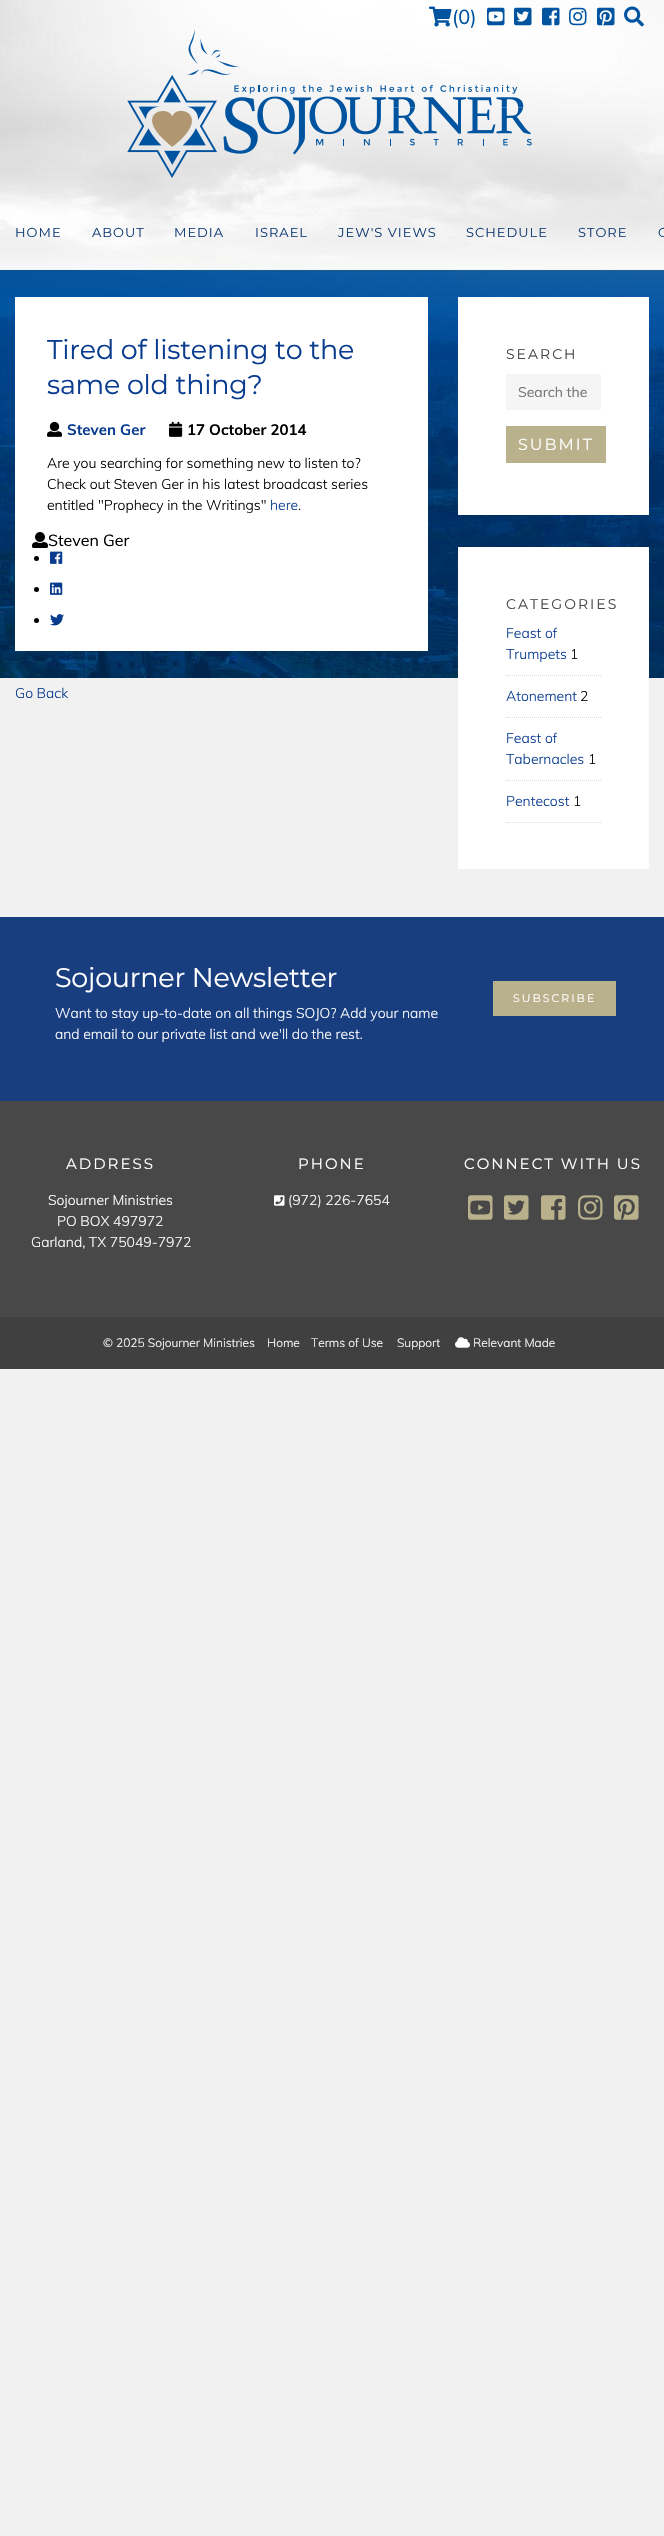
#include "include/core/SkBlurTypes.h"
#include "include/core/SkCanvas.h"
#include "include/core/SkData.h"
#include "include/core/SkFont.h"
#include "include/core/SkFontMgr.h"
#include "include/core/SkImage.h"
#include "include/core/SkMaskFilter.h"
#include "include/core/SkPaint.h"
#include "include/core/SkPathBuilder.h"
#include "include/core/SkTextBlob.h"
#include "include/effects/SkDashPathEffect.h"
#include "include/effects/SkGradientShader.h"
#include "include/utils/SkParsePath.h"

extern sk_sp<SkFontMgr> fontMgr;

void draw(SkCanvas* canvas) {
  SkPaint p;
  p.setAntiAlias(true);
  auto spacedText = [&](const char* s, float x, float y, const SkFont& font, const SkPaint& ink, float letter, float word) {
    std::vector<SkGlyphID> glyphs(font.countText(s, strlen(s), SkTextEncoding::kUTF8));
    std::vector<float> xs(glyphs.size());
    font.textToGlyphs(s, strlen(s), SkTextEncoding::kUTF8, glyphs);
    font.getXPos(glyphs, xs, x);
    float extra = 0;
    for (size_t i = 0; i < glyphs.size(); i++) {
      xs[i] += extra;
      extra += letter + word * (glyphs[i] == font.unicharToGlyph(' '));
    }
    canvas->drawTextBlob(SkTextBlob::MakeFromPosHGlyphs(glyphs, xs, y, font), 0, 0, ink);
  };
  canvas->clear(SkColorSetRGB(241, 241, 241));
  canvas->drawImageRect(SkImages::DeferredFromEncodedData(SkData::MakeFromFileName("images/1.png")), SkRect::MakeLTRB(0, 0, 664, 678), SkSamplingOptions());
  canvas->drawImageRect(SkImages::DeferredFromEncodedData(SkData::MakeFromFileName("images/2.png")), SkRect::MakeLTRB(429, 6, 452, 27), SkSamplingOptions());
  canvas->drawImageRect(SkImages::DeferredFromEncodedData(SkData::MakeFromFileName("images/3.png")), SkRect::MakeLTRB(487, 7, 505, 26), SkSamplingOptions());
  canvas->drawImageRect(SkImages::DeferredFromEncodedData(SkData::MakeFromFileName("images/4.png")), SkRect::MakeLTRB(514, 7, 532, 26), SkSamplingOptions());
  canvas->drawImageRect(SkImages::DeferredFromEncodedData(SkData::MakeFromFileName("images/5.png")), SkRect::MakeLTRB(542, 7, 560, 26), SkSamplingOptions());
  canvas->drawImageRect(SkImages::DeferredFromEncodedData(SkData::MakeFromFileName("images/6.png")), SkRect::MakeLTRB(569, 7, 587, 26), SkSamplingOptions());
  canvas->drawImageRect(SkImages::DeferredFromEncodedData(SkData::MakeFromFileName("images/7.png")), SkRect::MakeLTRB(597, 7, 615, 26), SkSamplingOptions());
  canvas->drawImageRect(SkImages::DeferredFromEncodedData(SkData::MakeFromFileName("images/8.png")), SkRect::MakeLTRB(624, 6, 644, 27), SkSamplingOptions());
  canvas->drawImageRect(SkImages::DeferredFromEncodedData(SkData::MakeFromFileName("images/9.png")), SkRect::MakeLTRB(127, 29, 532, 178), SkSamplingOptions());
  p.setColor(SK_ColorWHITE);
  canvas->drawRect(SkRect::MakeLTRB(15, 297, 428, 651), p);
  canvas->drawImageRect(SkImages::DeferredFromEncodedData(SkData::MakeFromFileName("images/10.png")), SkRect::MakeLTRB(47, 421, 62, 437), SkSamplingOptions());
  canvas->drawImageRect(SkImages::DeferredFromEncodedData(SkData::MakeFromFileName("images/11.png")), SkRect::MakeLTRB(169, 421, 183, 437), SkSamplingOptions());
  canvas->drawImageRect(SkImages::DeferredFromEncodedData(SkData::MakeFromFileName("images/12.png")), SkRect::MakeLTRB(32, 532, 48, 548), SkSamplingOptions());
  p.setColor(SK_ColorBLACK);
  canvas->drawCircle(36.5f, 558.5f, 2.5f, p);
  canvas->drawImageRect(SkImages::DeferredFromEncodedData(SkData::MakeFromFileName("images/13.png")), SkRect::MakeLTRB(50, 551, 63, 564), SkSamplingOptions());
  canvas->drawCircle(36.5f, 589.5f, 2.5f, p);
  canvas->drawImageRect(SkImages::DeferredFromEncodedData(SkData::MakeFromFileName("images/14.png")), SkRect::MakeLTRB(50, 582, 63, 595), SkSamplingOptions());
  canvas->drawCircle(36.5f, 620.5f, 2.5f, p);
  canvas->drawImageRect(SkImages::DeferredFromEncodedData(SkData::MakeFromFileName("images/15.png")), SkRect::MakeLTRB(50, 614, 64, 626), SkSamplingOptions());
  p.setColor(SK_ColorWHITE);
  canvas->drawRect(SkRect::MakeLTRB(458, 297, 649, 515), p);
  p.setColor(SkColorSetRGB(245, 245, 245));
  canvas->drawRect(SkRect::MakeLTRB(506, 374, 601, 410), p);
  p.setColor(SkColorSetRGB(185, 177, 139));
  canvas->drawRect(SkRect::MakeLTRB(506, 426, 606, 463), p);
  p.setColor(SK_ColorWHITE);
  canvas->drawRect(SkRect::MakeLTRB(458, 547, 649, 869), p);
  p.setStyle(SkPaint::kStroke_Style);
  p.setStrokeWidth(1);
  p.setColor(SkColorSetRGB(217, 217, 217));
  p.setPathEffect(SkDashPathEffect::Make({{1, 1}}, 0));
  canvas->drawPath(SkPathBuilder().moveTo(506, 675.5f).lineTo(601, 675.5f).detach(), p);
  p.setPathEffect(nullptr);
  p.setPathEffect(SkDashPathEffect::Make({{1, 1}}, 0));
  canvas->drawPath(SkPathBuilder().moveTo(506, 717.5f).lineTo(601, 717.5f).detach(), p);
  p.setPathEffect(nullptr);
  p.setPathEffect(SkDashPathEffect::Make({{1, 1}}, 0));
  canvas->drawPath(SkPathBuilder().moveTo(506, 780.5f).lineTo(601, 780.5f).detach(), p);
  p.setPathEffect(nullptr);
  p.setPathEffect(SkDashPathEffect::Make({{1, 1}}, 0));
  canvas->drawPath(SkPathBuilder().moveTo(506, 822.5f).lineTo(601, 822.5f).detach(), p);
  p.setPathEffect(nullptr);
  p.setStyle(SkPaint::kFill_Style);
  p.setColor(SkColorSetRGB(25, 62, 127));
  canvas->drawRect(SkRect::MakeLTRB(0, 917, 664, 1101), p);
  p.setColor(SkColorSetRGB(185, 177, 139));
  canvas->drawRect(SkRect::MakeLTRB(493, 981, 616, 1016), p);
  p.setColor(SkColorSetRGB(72, 72, 72));
  canvas->drawRect(SkRect::MakeLTRB(0, 1101, 664, 1317), p);
  canvas->drawImageRect(SkImages::DeferredFromEncodedData(SkData::MakeFromFileName("images/16.png")), SkRect::MakeLTRB(274, 1195, 285, 1206), SkSamplingOptions());
  canvas->drawImageRect(SkImages::DeferredFromEncodedData(SkData::MakeFromFileName("images/17.png")), SkRect::MakeLTRB(468, 1195, 493, 1220), SkSamplingOptions());
  canvas->drawImageRect(SkImages::DeferredFromEncodedData(SkData::MakeFromFileName("images/18.png")), SkRect::MakeLTRB(504, 1195, 529, 1220), SkSamplingOptions());
  canvas->drawImageRect(SkImages::DeferredFromEncodedData(SkData::MakeFromFileName("images/19.png")), SkRect::MakeLTRB(541, 1195, 566, 1220), SkSamplingOptions());
  canvas->drawImageRect(SkImages::DeferredFromEncodedData(SkData::MakeFromFileName("images/20.png")), SkRect::MakeLTRB(578, 1195, 603, 1220), SkSamplingOptions());
  canvas->drawImageRect(SkImages::DeferredFromEncodedData(SkData::MakeFromFileName("images/21.png")), SkRect::MakeLTRB(614, 1195, 639, 1220), SkSamplingOptions());
  p.setColor(SkColorSetRGB(64, 64, 64));
  canvas->drawRect(SkRect::MakeLTRB(0, 1317, 664, 1369), p);
  canvas->drawImageRect(SkImages::DeferredFromEncodedData(SkData::MakeFromFileName("images/22.png")), SkRect::MakeLTRB(455, 1337, 470, 1348), SkSamplingOptions());
  SkFont font1(fontMgr->matchFamilyStyle("Muli", SkFontStyle::Normal()), 20);
  font1.setSubpixel(true);
  p.setColor(SkColorSetRGB(0, 83, 159));
  canvas->drawString("(0)", 452, 24, font1, p);
  SkFont font2(fontMgr->matchFamilyStyle("Montserrat", SkFontStyle::Normal()), 13);
  font2.setSubpixel(true);
  p.setColor(SkColorSetRGB(20, 61, 117));
  spacedText("HOME", 15, 237, font2, p, 1, 0);
  spacedText("ABOUT", 92, 237, font2, p, 1, 0);
  spacedText("MEDIA", 174, 237, font2, p, 1, 0);
  spacedText("ISRAEL", 255, 237, font2, p, 1, 0);
  spacedText("JEW'S VIEWS", 338, 237, font2, p, 1, 0);
  spacedText("SCHEDULE", 466, 237, font2, p, 1, 0);
  spacedText("STORE", 578, 237, font2, p, 1, 0);
  spacedText("C", 658, 237, font2, p, 1, 0);
  SkFont font3(fontMgr->matchFamilyStyle("Montserrat", SkFontStyle::Normal()), 27);
  font3.setSubpixel(true);
  p.setColor(SkColorSetRGB(9, 59, 143));
  spacedText("Tired of listening to the", 47, 359, font3, p, -0.25f, 0);
  spacedText("same old thing?", 47, 394, font3, p, -0.25f, 0);
  SkFont font4(fontMgr->matchFamilyStyle("Muli", SkFontStyle::Bold()), 15);
  font4.setSubpixel(true);
  canvas->drawString("Steven Ger", 67, 435, font4, p);
  p.setColor(SK_ColorBLACK);
  canvas->drawString("17 October 2014", 187, 435, font4, p);
  SkFont font5(fontMgr->matchFamilyStyle("Muli", SkFontStyle(300, SkFontStyle::kNormal_Width, SkFontStyle::kUpright_Slant)), 14);
  font5.setSubpixel(true);
  canvas->drawString("Are you searching for something new to listen to?", 47, 468, font5, p);
  canvas->drawString("Check out Steven Ger in his latest broadcast series", 47, 489, font5, p);
  canvas->drawString("entitled \"Prophecy in the Writings\"", 47, 510, font5, p);
  p.setColor(SkColorSetRGB(9, 59, 143));
  canvas->drawString("here", 270, 510, font5, p);
  p.setColor(SK_ColorBLACK);
  canvas->drawString(".", 298, 510, font5, p);
  SkFont font6(fontMgr->matchFamilyStyle("Muli", SkFontStyle::Normal()), 16);
  font6.setSubpixel(true);
  canvas->drawString("Steven Ger", 48, 546, font6, p);
  p.setColor(SkColorSetRGB(9, 59, 143));
  canvas->drawString("Go Back", 15, 698, font5, p);
  SkFont font7(fontMgr->matchFamilyStyle("Montserrat", SkFontStyle::Normal()), 14);
  font7.setSubpixel(true);
  p.setColor(SkColorSetRGB(72, 72, 72));
  spacedText("SEARCH", 506, 359, font7, p, 2, 0);
  SkFont font8(fontMgr->matchFamilyStyle("Muli", SkFontStyle::Normal()), 14);
  font8.setSubpixel(true);
  p.setColor(SkColorSetRGB(117, 117, 117));
  canvas->drawString("Search the", 518, 397, font8, p);
  SkFont font9(fontMgr->matchFamilyStyle("Montserrat", SkFontStyle::Normal()), 16);
  font9.setSubpixel(true);
  p.setColor(SK_ColorWHITE);
  spacedText("SUBMIT", 518, 450, font9, p, 2, 0);
  p.setColor(SkColorSetRGB(72, 72, 72));
  spacedText("CATEGORIES", 506, 609, font7, p, 2, 0);
  p.setColor(SkColorSetRGB(9, 59, 143));
  canvas->drawString("Feast of", 506, 638, font5, p);
  canvas->drawString("Trumpets", 506, 659, font5, p);
  p.setColor(SK_ColorBLACK);
  canvas->drawString("1", 570, 659, font5, p);
  p.setColor(SkColorSetRGB(9, 59, 143));
  canvas->drawString("Atonement", 506, 701, font5, p);
  p.setColor(SK_ColorBLACK);
  canvas->drawString("2", 580, 701, font5, p);
  p.setColor(SkColorSetRGB(9, 59, 143));
  canvas->drawString("Feast of", 506, 743, font5, p);
  canvas->drawString("Tabernacles", 506, 764, font5, p);
  p.setColor(SK_ColorBLACK);
  canvas->drawString("1", 588, 764, font5, p);
  p.setColor(SkColorSetRGB(9, 59, 143));
  canvas->drawString("Pentecost", 506, 806, font5, p);
  p.setColor(SK_ColorBLACK);
  canvas->drawString("1", 573, 806, font5, p);
  p.setColor(SK_ColorWHITE);
  spacedText("Sojourner Newsletter", 55, 987, font3, p, -0.25f, 0);
  canvas->drawString("Want to stay up-to-date on all things SOJO? Add your name", 55, 1018, font5, p);
  canvas->drawString("and email to our private list and we'll do the rest.", 55, 1039, font5, p);
  SkFont font10(fontMgr->matchFamilyStyle("Montserrat", SkFontStyle::Normal()), 11);
  font10.setSubpixel(true);
  spacedText("SUBSCRIBE", 513, 1002, font10, p, 2, 0);
  SkFont font11(fontMgr->matchFamilyStyle("Montserrat", SkFontStyle::Normal()), 15);
  font11.setSubpixel(true);
  spacedText("ADDRESS", 66, 1169, font11, p, 2, 0);
  canvas->drawString("Sojourner Ministries", 48, 1205, font5, p);
  canvas->drawString("PO BOX 497972", 57, 1226, font5, p);
  canvas->drawString("Garland, TX 75049-7972", 31, 1247, font5, p);
  spacedText("PHONE", 298, 1169, font11, p, 2, 0);
  canvas->drawString("(972) 226-7654", 288, 1205, font5, p);
  spacedText("CONNECT WITH US", 464, 1169, font11, p, 2, 0);
  SkFont font12(fontMgr->matchFamilyStyle("Muli", SkFontStyle(300, SkFontStyle::kNormal_Width, SkFontStyle::kUpright_Slant)), 12);
  font12.setSubpixel(true);
  canvas->drawString("© 2025 Sojourner Ministries", 103, 1347, font12, p);
  canvas->drawString("Home", 267, 1347, font12, p);
  canvas->drawString("Terms of Use", 311, 1347, font12, p);
  canvas->drawString("Support", 397, 1347, font12, p);
  canvas->drawString("Relevant Made", 473, 1347, font12, p);
}
